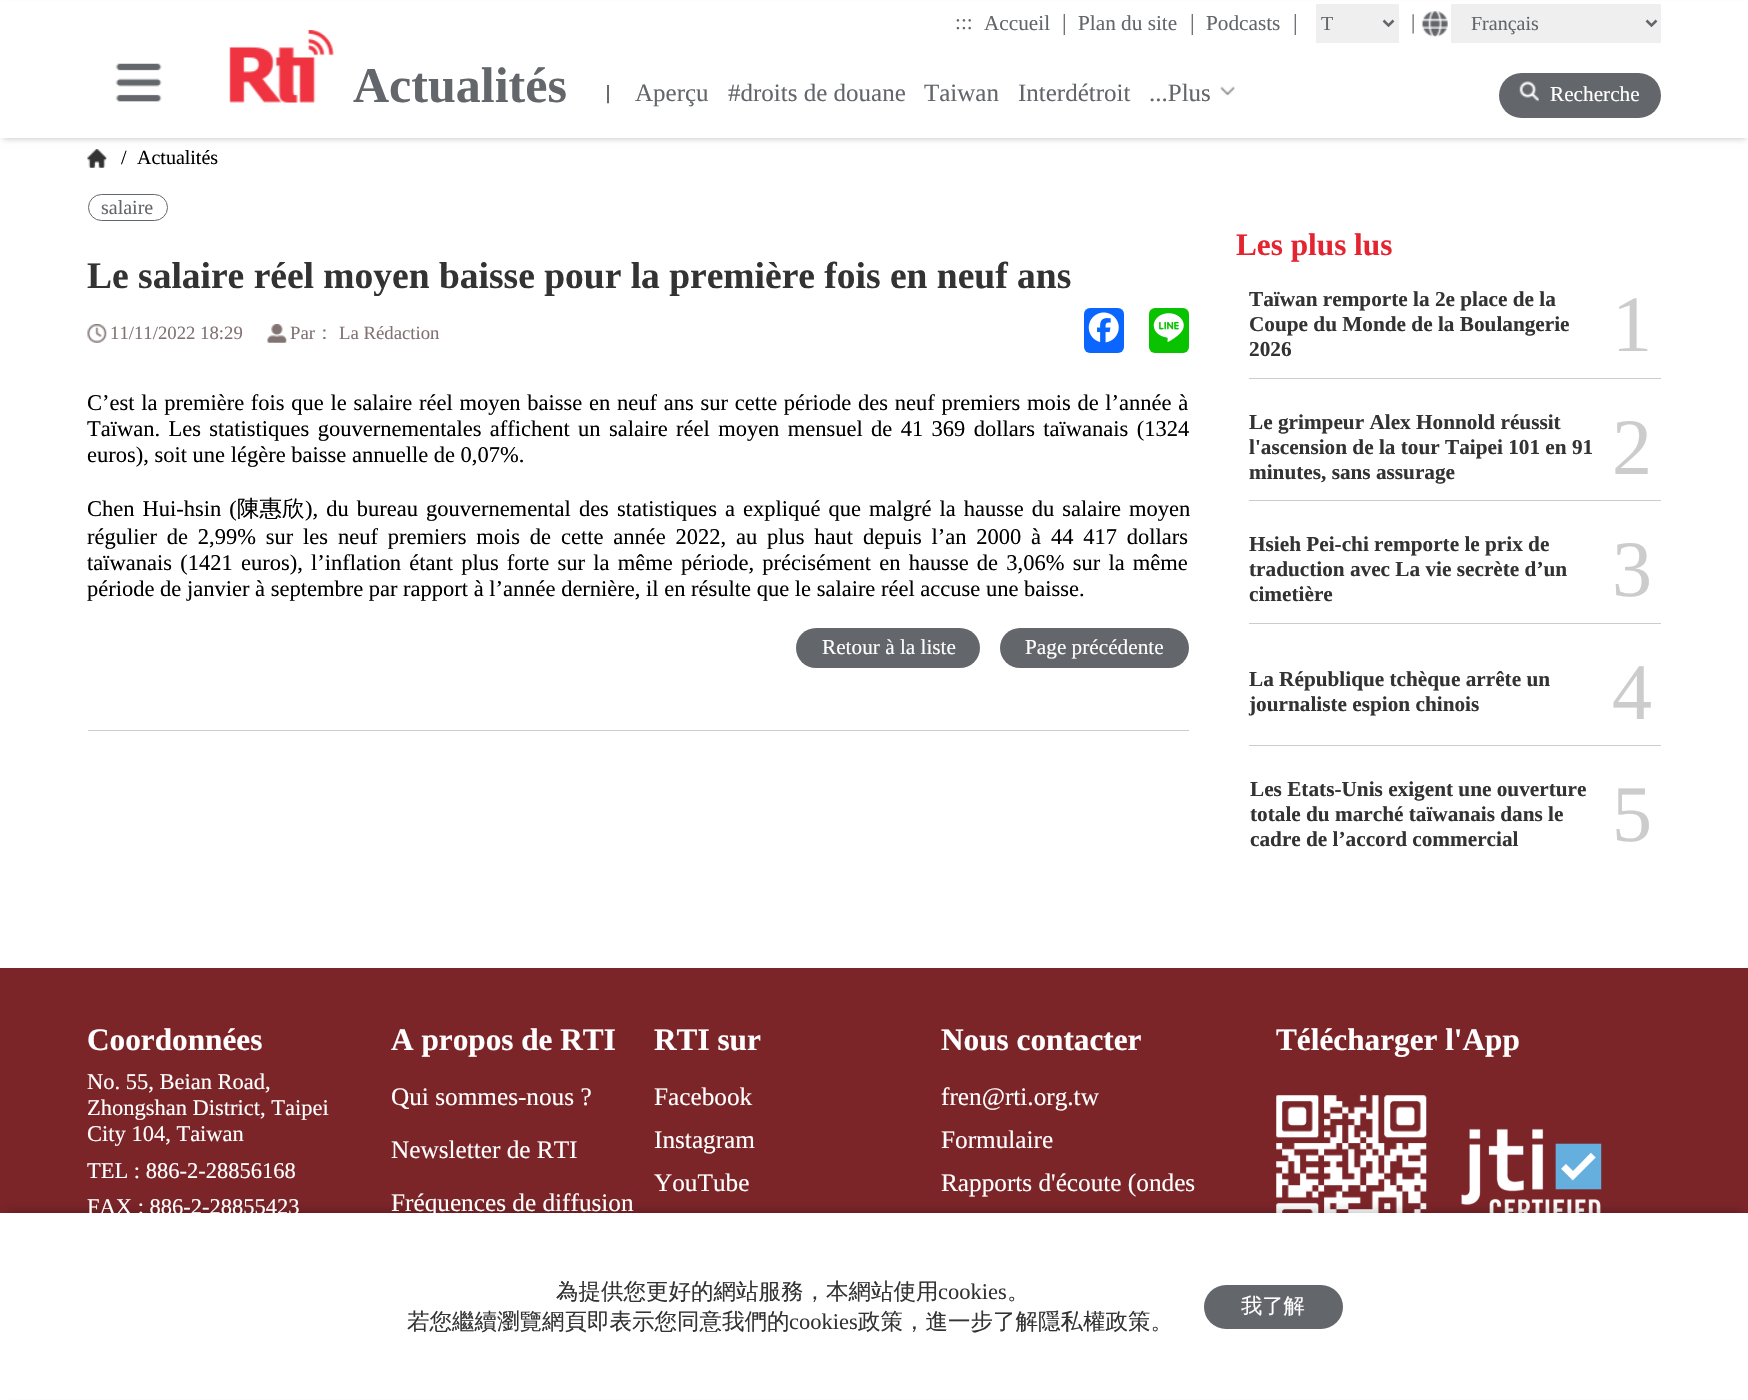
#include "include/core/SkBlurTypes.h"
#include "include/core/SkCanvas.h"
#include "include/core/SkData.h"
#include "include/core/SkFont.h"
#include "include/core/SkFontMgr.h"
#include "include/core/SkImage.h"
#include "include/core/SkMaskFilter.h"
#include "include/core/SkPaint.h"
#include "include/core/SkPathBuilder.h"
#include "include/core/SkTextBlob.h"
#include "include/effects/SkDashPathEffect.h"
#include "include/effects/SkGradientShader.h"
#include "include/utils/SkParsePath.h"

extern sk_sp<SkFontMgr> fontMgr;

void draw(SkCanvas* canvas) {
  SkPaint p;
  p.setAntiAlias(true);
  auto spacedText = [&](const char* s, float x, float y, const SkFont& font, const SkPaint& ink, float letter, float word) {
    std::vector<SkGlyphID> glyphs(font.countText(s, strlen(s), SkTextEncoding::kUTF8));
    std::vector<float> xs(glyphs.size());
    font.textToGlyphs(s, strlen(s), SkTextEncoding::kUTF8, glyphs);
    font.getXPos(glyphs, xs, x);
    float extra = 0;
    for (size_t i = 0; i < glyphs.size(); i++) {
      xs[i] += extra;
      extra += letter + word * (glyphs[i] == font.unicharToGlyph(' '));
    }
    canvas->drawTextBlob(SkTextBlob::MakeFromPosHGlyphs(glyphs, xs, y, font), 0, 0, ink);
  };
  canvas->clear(SK_ColorWHITE);
  p.setColor(SkColorSetARGB(51, 0, 0, 0));
  p.setMaskFilter(SkMaskFilter::MakeBlur(kNormal_SkBlurStyle, 3));
  canvas->drawRect(SkRect::MakeLTRB(3, 6, 1746, 139), p);
  p.setMaskFilter(nullptr);
  p.setColor(SK_ColorWHITE);
  canvas->drawRect(SkRect::MakeLTRB(0, 1, 1748, 138), p);
  p.setColor(SkColorSetRGB(239, 239, 239));
  canvas->drawRect(SkRect::MakeLTRB(1316, 4, 1399, 43), p);
  p.setStyle(SkPaint::kStroke_Style);
  p.setStrokeWidth(2.5f);
  p.setColor(SkColorSetRGB(99, 102, 106));
  canvas->drawPath(SkPathBuilder().moveTo(1383.5f, 20.5f).lineTo(1388.5f, 25.5f).lineTo(1393.5f, 20.5f).detach(), p);
  canvas->drawImageRect(SkImages::DeferredFromEncodedData(SkData::MakeFromFileName("images/1.png")), SkRect::MakeLTRB(1421, 11, 1448, 37), SkSamplingOptions());
  p.setStyle(SkPaint::kFill_Style);
  p.setColor(SkColorSetRGB(239, 239, 239));
  canvas->drawRect(SkRect::MakeLTRB(1451, 4, 1661, 43), p);
  p.setStyle(SkPaint::kStroke_Style);
  p.setColor(SkColorSetRGB(99, 102, 106));
  canvas->drawPath(SkPathBuilder().moveTo(1646.5f, 20.5f).lineTo(1651.5f, 25.5f).lineTo(1656.5f, 20.5f).detach(), p);
  canvas->drawImageRect(SkImages::DeferredFromEncodedData(SkData::MakeFromFileName("images/2.png")), SkRect::MakeLTRB(115, 63, 162, 102), SkSamplingOptions());
  canvas->drawImageRect(SkImages::DeferredFromEncodedData(SkData::MakeFromFileName("images/3.png")), SkRect::MakeLTRB(229, 30, 334, 103), SkSamplingOptions());
  canvas->drawImageRect(SkImages::DeferredFromEncodedData(SkData::MakeFromFileName("images/4.png")), SkRect::MakeLTRB(1220, 86, 1235, 96), SkSamplingOptions());
  p.setStyle(SkPaint::kFill_Style);
  canvas->drawRoundRect(SkRect::MakeLTRB(1499, 73, 1661, 118), 22.5f, 22.5f, p);
  canvas->drawImageRect(SkImages::DeferredFromEncodedData(SkData::MakeFromFileName("images/5.png")), SkRect::MakeLTRB(1519, 81, 1539, 102), SkSamplingOptions());
  canvas->drawImageRect(SkImages::DeferredFromEncodedData(SkData::MakeFromFileName("images/6.png")), SkRect::MakeLTRB(87, 149, 107, 168), SkSamplingOptions());
  p.setStyle(SkPaint::kStroke_Style);
  p.setStrokeWidth(1);
  canvas->drawRoundRect(SkRect::MakeLTRB(88.5f, 194.5f, 167.5f, 220.5f), 13, 13, p);
  canvas->drawImageRect(SkImages::DeferredFromEncodedData(SkData::MakeFromFileName("images/7.png")), SkRect::MakeLTRB(87, 324, 107, 343), SkSamplingOptions());
  canvas->drawImageRect(SkImages::DeferredFromEncodedData(SkData::MakeFromFileName("images/8.png")), SkRect::MakeLTRB(267, 324, 287, 343), SkSamplingOptions());
  p.setStyle(SkPaint::kFill_Style);
  p.setColor(SkColorSetRGB(10, 102, 255));
  canvas->drawRoundRect(SkRect::MakeLTRB(1084, 308, 1124, 353), 6, 6, p);
  canvas->drawImageRect(SkImages::DeferredFromEncodedData(SkData::MakeFromFileName("images/9.png")), SkRect::MakeLTRB(1088, 312, 1119, 343), SkSamplingOptions());
  p.setColor(SkColorSetRGB(9, 195, 1));
  canvas->drawRoundRect(SkRect::MakeLTRB(1149, 308, 1189, 353), 6, 6, p);
  canvas->drawImageRect(SkImages::DeferredFromEncodedData(SkData::MakeFromFileName("images/10.png")), SkRect::MakeLTRB(1153, 313, 1184, 342), SkSamplingOptions());
  p.setColor(SkColorSetRGB(204, 204, 204));
  canvas->drawRect(SkRect::MakeLTRB(88, 730, 1189, 731), p);
  p.setColor(SkColorSetRGB(99, 102, 106));
  canvas->drawRoundRect(SkRect::MakeLTRB(796, 628, 980, 668), 20, 20, p);
  canvas->drawRoundRect(SkRect::MakeLTRB(1000, 628, 1189, 668), 20, 20, p);
  p.setColor(SkColorSetRGB(204, 204, 204));
  canvas->drawRect(SkRect::MakeLTRB(1249, 378, 1661, 379), p);
  canvas->drawRect(SkRect::MakeLTRB(1249, 500, 1661, 501), p);
  canvas->drawRect(SkRect::MakeLTRB(1249, 623, 1661, 624), p);
  canvas->drawRect(SkRect::MakeLTRB(1249, 745, 1661, 746), p);
  p.setColor(SkColorSetRGB(124, 37, 41));
  canvas->drawRect(SkRect::MakeLTRB(0, 968, 1748, 1213), p);
  canvas->drawImageRect(SkImages::DeferredFromEncodedData(SkData::MakeFromFileName("images/11.png")), SkRect::MakeLTRB(1276, 1095, 1427, 1213), SkSamplingOptions());
  canvas->drawImageRect(SkImages::DeferredFromEncodedData(SkData::MakeFromFileName("images/12.png")), SkRect::MakeLTRB(1461, 1128, 1602, 1213), SkSamplingOptions());
  p.setColor(SkColorSetARGB(77, 0, 0, 0));
  p.setMaskFilter(SkMaskFilter::MakeBlur(kNormal_SkBlurStyle, 6));
  canvas->drawRect(SkRect::MakeLTRB(6, 1213, 1743, 1388), p);
  p.setMaskFilter(nullptr);
  p.setColor(SK_ColorWHITE);
  canvas->drawRect(SkRect::MakeLTRB(0, 1213, 1748, 1399), p);
  p.setColor(SkColorSetRGB(99, 102, 106));
  canvas->drawRoundRect(SkRect::MakeLTRB(1204, 1285, 1343, 1329), 22, 22, p);
  SkFont font1(fontMgr->matchFamilyStyle("Liberation Serif", SkFontStyle::Normal()), 21.25f);
  font1.setSubpixel(true);
  canvas->drawString(":::", 955, 29, font1, p);
  canvas->drawString("Accueil", 984, 30, font1, p);
  SkFont font2(fontMgr->matchFamilyStyle("Liberation Serif", SkFontStyle::Normal()), 23);
  font2.setSubpixel(true);
  canvas->drawString("|", 1062, 30, font2, p);
  canvas->drawString("Plan du site", 1078, 30, font1, p);
  canvas->drawString("|", 1190, 30, font2, p);
  canvas->drawString("Podcasts", 1206, 30, font1, p);
  canvas->drawString("|", 1293, 30, font2, p);
  SkFont font3(fontMgr->matchFamilyStyle("Liberation Serif", SkFontStyle::Normal()), 20);
  font3.setSubpixel(true);
  canvas->drawString("T", 1321, 30, font3, p);
  canvas->drawString("|", 1411, 29, font1, p);
  canvas->drawString("Français", 1471, 30, font3, p);
  SkFont font4(fontMgr->matchFamilyStyle("Liberation Serif", SkFontStyle::Bold()), 50);
  font4.setSubpixel(true);
  canvas->drawString("Actualités", 353, 102, font4, p);
  p.setColor(SK_ColorBLACK);
  canvas->drawString("|", 606, 99, font3, p);
  SkFont font5(fontMgr->matchFamilyStyle("Liberation Serif", SkFontStyle::Normal()), 25);
  font5.setSubpixel(true);
  p.setColor(SkColorSetRGB(99, 102, 106));
  canvas->drawString("Aperçu", 635, 101, font5, p);
  canvas->drawString("#droits de douane", 728, 101, font5, p);
  canvas->drawString("Taiwan", 924, 101, font5, p);
  canvas->drawString("Interdétroit", 1018, 101, font5, p);
  canvas->drawString("...Plus", 1149, 101, font5, p);
  p.setColor(SK_ColorWHITE);
  canvas->drawString("Recherche", 1550, 101, font1, p);
  p.setColor(SK_ColorBLACK);
  canvas->drawString("/", 121, 164, font3, p);
  canvas->drawString("Actualités", 137, 164, font3, p);
  p.setColor(SkColorSetRGB(99, 102, 106));
  canvas->drawString("salaire", 101, 214, font3, p);
  SkFont font6(fontMgr->matchFamilyStyle("Liberation Serif", SkFontStyle::Bold()), 37.5f);
  font6.setSubpixel(true);
  p.setColor(SkColorSetRGB(51, 51, 51));
  canvas->drawString("Le salaire réel moyen baisse pour la première fois en neuf ans", 87, 288, font6, p);
  SkFont font7(fontMgr->matchFamilyStyle("Liberation Serif", SkFontStyle::Normal()), 18.75f);
  font7.setSubpixel(true);
  p.setColor(SkColorSetRGB(130, 115, 115));
  canvas->drawString("11/11/2022 18:29", 110, 339, font7, p);
  canvas->drawString("Par", 290, 339, font7, p);
  SkFont font8(fontMgr->matchFamilyStyle("WenQuanYi Zen Hei", SkFontStyle(500, SkFontStyle::kNormal_Width, SkFontStyle::kUpright_Slant)), 18.75f);
  font8.setSubpixel(true);
  canvas->drawString("：", 315, 339, font8, p);
  canvas->drawString("La Rédaction", 339, 339, font7, p);
  SkFont font9(fontMgr->matchFamilyStyle("Liberation Serif", SkFontStyle::Normal()), 22.5f);
  font9.setSubpixel(true);
  p.setColor(SK_ColorBLACK);
  spacedText("C’est la première fois que le salaire réel moyen baisse en neuf ans sur cette période des neuf premiers mois de l’année à", 87, 410, font9, p, 0, 1.1f);
  spacedText("Taïwan. Les statistiques gouvernementales affichent un salaire réel moyen mensuel de 41 369 dollars taïwanais (1324", 87, 436, font9, p, 0, 2.75f);
  canvas->drawString("euros), soit une légère baisse annuelle de 0,07%.", 87, 462, font9, p);
  spacedText("Chen Hui-hsin (", 87, 516, font9, p, 0, 2.4f);
  SkFont font10(fontMgr->matchFamilyStyle("WenQuanYi Zen Hei", SkFontStyle(500, SkFontStyle::kNormal_Width, SkFontStyle::kUpright_Slant)), 22.5f);
  font10.setSubpixel(true);
  canvas->drawString("陳惠欣", 237, 516, font10, p);
  spacedText("), du bureau gouvernemental des statistiques a expliqué que malgré la hausse du salaire moyen", 305, 516, font9, p, 0, 2.4f);
  spacedText("régulier de 2,99% sur les neuf premiers mois de cette année 2022, au plus haut depuis l’an 2000 à 44 417 dollars", 87, 544, font9, p, 0, 4.2f);
  spacedText("taïwanais (1421 euros), l’inflation étant plus forte sur la même période, précisément en hausse de 3,06% sur la même", 87, 570, font9, p, 0, 2.6f);
  canvas->drawString("période de janvier à septembre par rapport à l’année dernière, il en résulte que le salaire réel accuse une baisse.", 87, 596, font9, p);
  p.setColor(SK_ColorWHITE);
  canvas->drawString("Retour à la liste", 822, 654, font1, p);
  canvas->drawString("Page précédente", 1025, 654, font1, p);
  SkFont font11(fontMgr->matchFamilyStyle("Liberation Serif", SkFontStyle::Bold()), 31.25f);
  font11.setSubpixel(true);
  p.setColor(SkColorSetRGB(229, 36, 49));
  canvas->drawString("Les plus lus", 1236, 255, font11, p);
  SkFont font12(fontMgr->matchFamilyStyle("Liberation Serif", SkFontStyle::Bold()), 21.25f);
  font12.setSubpixel(true);
  p.setColor(SkColorSetRGB(51, 51, 51));
  canvas->drawString("Taïwan remporte la 2e place de la", 1249, 306, font12, p);
  canvas->drawString("Coupe du Monde de la Boulangerie", 1249, 331, font12, p);
  canvas->drawString("2026", 1249, 356, font12, p);
  SkFont font13(fontMgr->matchFamilyStyle("Liberation Serif", SkFontStyle::Normal()), 80);
  font13.setSubpixel(true);
  p.setColor(SkColorSetRGB(204, 204, 204));
  canvas->drawString("1", 1612, 351, font13, p);
  p.setColor(SkColorSetRGB(51, 51, 51));
  canvas->drawString("Le grimpeur Alex Honnold réussit", 1249, 429, font12, p);
  canvas->drawString("l'ascension de la tour Taipei 101 en 91", 1249, 454, font12, p);
  canvas->drawString("minutes, sans assurage", 1249, 479, font12, p);
  p.setColor(SkColorSetRGB(204, 204, 204));
  canvas->drawString("2", 1612, 474, font13, p);
  p.setColor(SkColorSetRGB(51, 51, 51));
  canvas->drawString("Hsieh Pei-chi remporte le prix de", 1249, 551, font12, p);
  canvas->drawString("traduction avec La vie secrète d’un", 1249, 576, font12, p);
  canvas->drawString("cimetière", 1249, 601, font12, p);
  p.setColor(SkColorSetRGB(204, 204, 204));
  canvas->drawString("3", 1612, 596, font13, p);
  p.setColor(SkColorSetRGB(51, 51, 51));
  canvas->drawString("La République tchèque arrête un", 1249, 686, font12, p);
  canvas->drawString("journaliste espion chinois", 1249, 711, font12, p);
  p.setColor(SkColorSetRGB(204, 204, 204));
  canvas->drawString("4", 1612, 719, font13, p);
  p.setColor(SkColorSetRGB(51, 51, 51));
  canvas->drawString("Les Etats-Unis exigent une ouverture", 1250, 796, font12, p);
  canvas->drawString("totale du marché taïwanais dans le", 1250, 821, font12, p);
  canvas->drawString("cadre de l’accord commercial", 1250, 846, font12, p);
  p.setColor(SkColorSetRGB(204, 204, 204));
  canvas->drawString("5", 1612, 841, font13, p);
  p.setColor(SK_ColorWHITE);
  canvas->drawString("Coordonnées", 87, 1050, font11, p);
  canvas->drawString("No. 55, Beian Road,", 87, 1089, font9, p);
  canvas->drawString("Zhongshan District, Taipei", 87, 1115, font9, p);
  canvas->drawString("City 104, Taiwan", 87, 1141, font9, p);
  canvas->drawString("TEL : 886-2-28856168", 87, 1178, font9, p);
  canvas->drawString("FAX : 886-2-28855423", 87, 1214, font9, p);
  canvas->drawString("A propos de RTI", 391, 1050, font11, p);
  SkFont font14(fontMgr->matchFamilyStyle("Liberation Serif", SkFontStyle::Normal()), 25.25f);
  font14.setSubpixel(true);
  canvas->drawString("Qui sommes-nous ?", 391, 1105, font14, p);
  canvas->drawString("Newsletter de RTI", 391, 1158, font14, p);
  canvas->drawString("Fréquences de diffusion", 391, 1211, font14, p);
  canvas->drawString("RTI sur", 654, 1050, font11, p);
  canvas->drawString("Facebook", 654, 1105, font14, p);
  canvas->drawString("Instagram", 654, 1148, font14, p);
  canvas->drawString("YouTube", 654, 1191, font14, p);
  canvas->drawString("Nous contacter", 941, 1050, font11, p);
  canvas->drawString("fren@rti.org.tw", 941, 1105, font14, p);
  canvas->drawString("Formulaire", 941, 1148, font14, p);
  canvas->drawString("Rapports d'écoute (ondes", 941, 1191, font14, p);
  canvas->drawString("Télécharger l'App", 1276, 1050, font11, p);
  p.setColor(SkColorSetRGB(51, 51, 51));
  canvas->drawString("為提供您更好的網站服務，本網站使用", 556, 1299, font10, p);
  canvas->drawString("cookies", 938, 1299, font9, p);
  canvas->drawString("。", 1007, 1299, font10, p);
  canvas->drawString("若您繼續瀏覽網頁即表示您同意我們的", 407, 1329, font10, p);
  canvas->drawString("cookies", 789, 1329, font9, p);
  canvas->drawString("政策，進一步了解隱私權政策。", 858, 1329, font10, p);
  SkFont font15(fontMgr->matchFamilyStyle("WenQuanYi Zen Hei", SkFontStyle(500, SkFontStyle::kNormal_Width, SkFontStyle::kUpright_Slant)), 21.25f);
  font15.setSubpixel(true);
  p.setColor(SK_ColorWHITE);
  canvas->drawString("我了解", 1241, 1313, font15, p);
}
